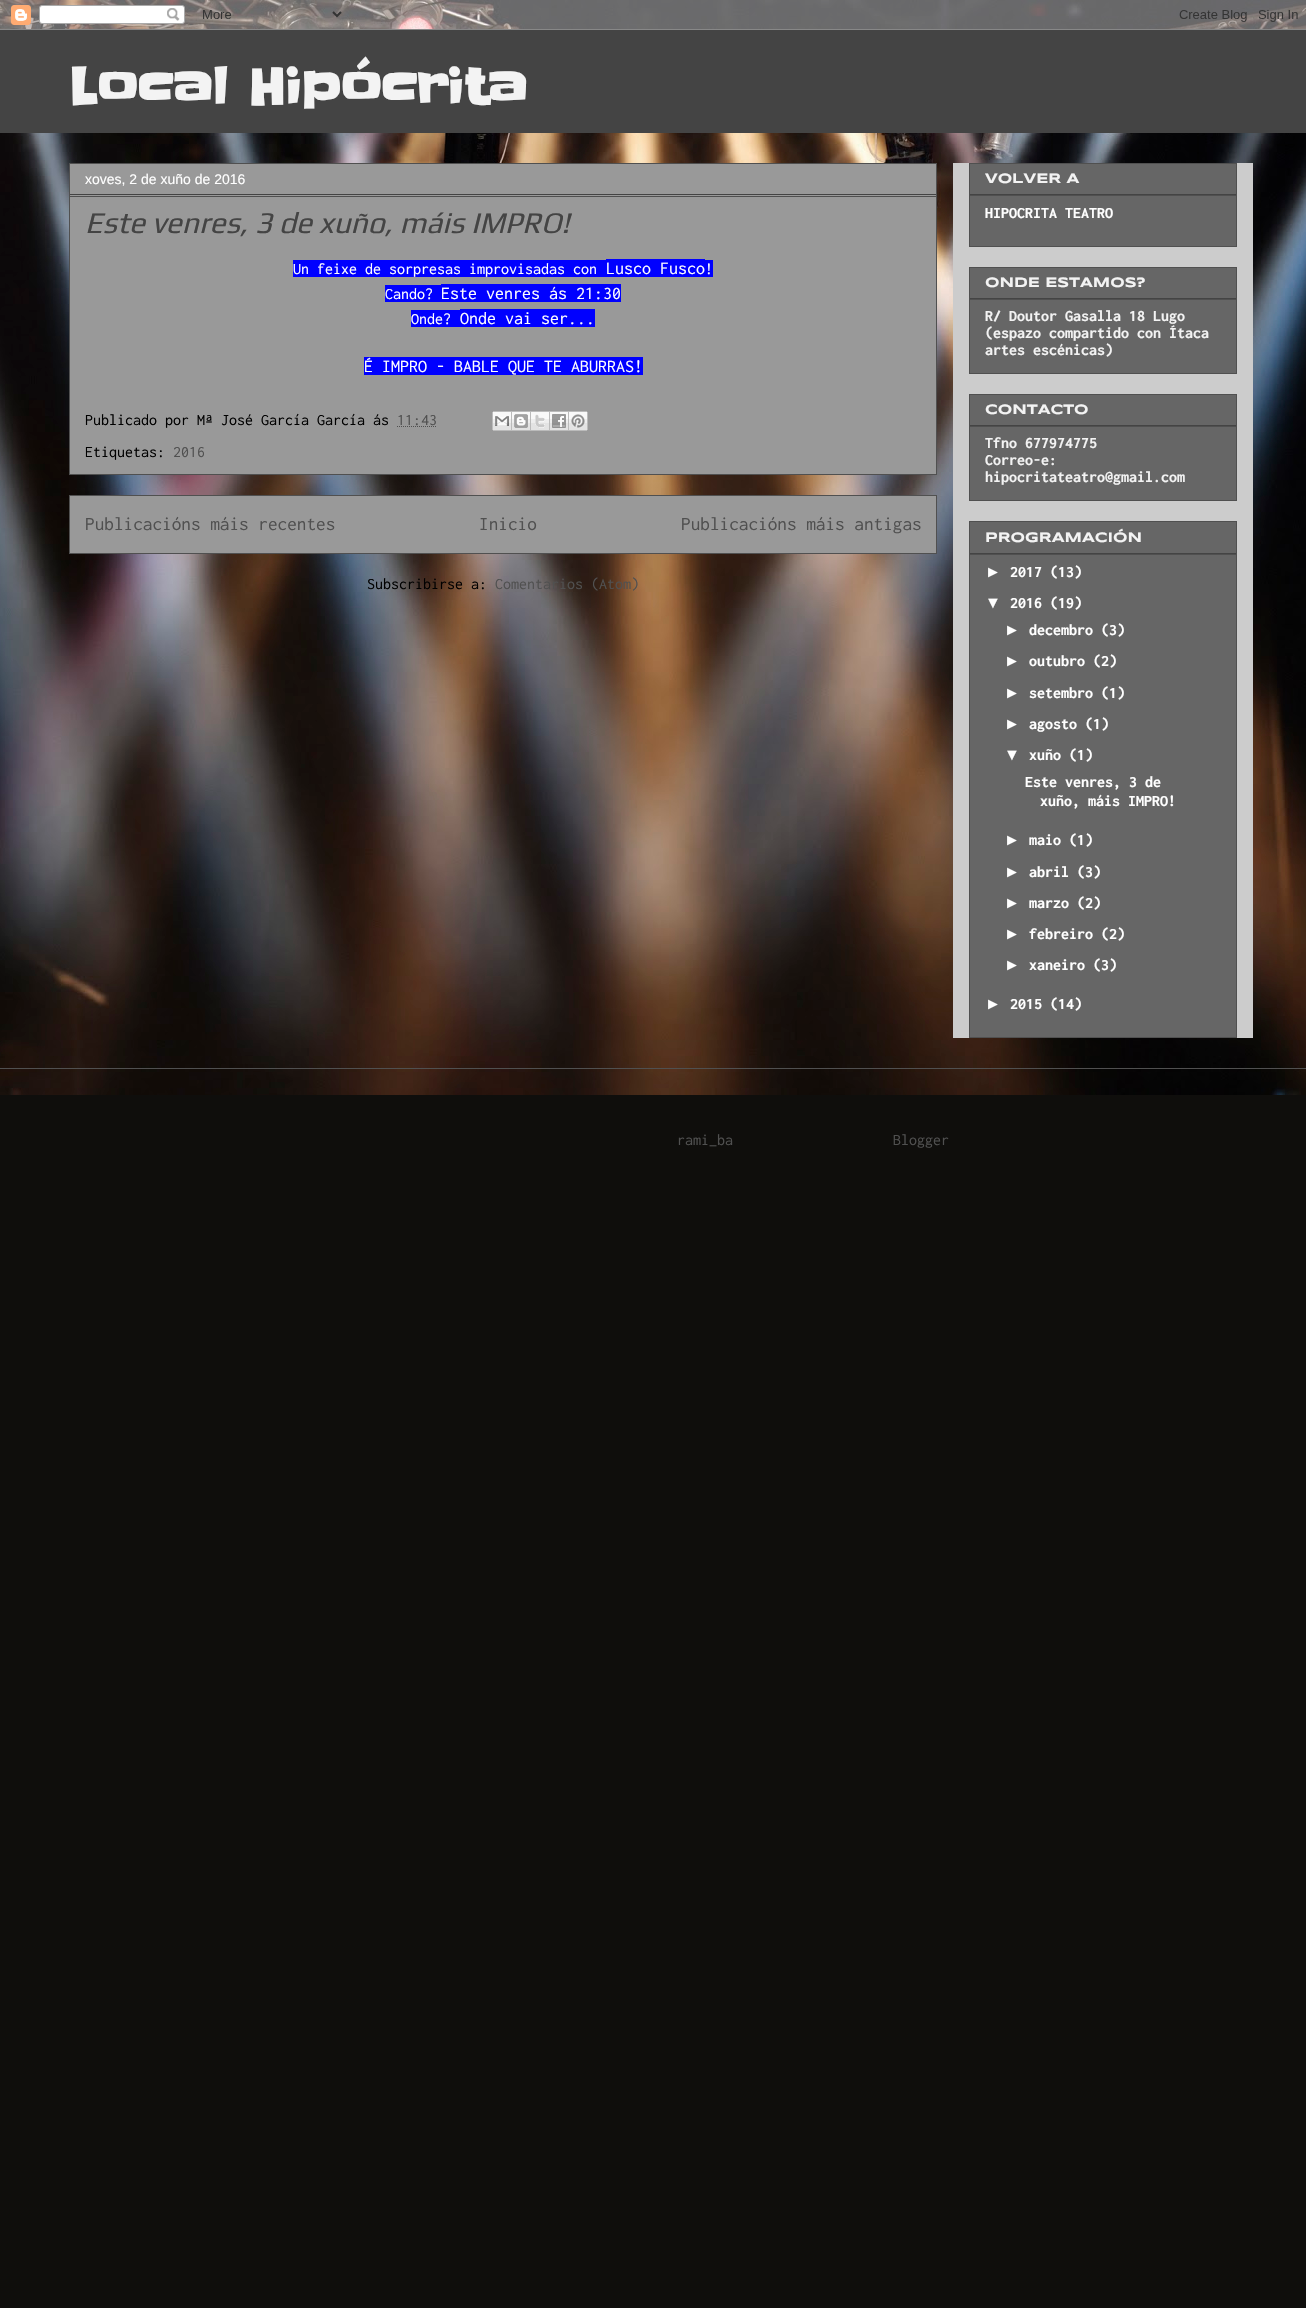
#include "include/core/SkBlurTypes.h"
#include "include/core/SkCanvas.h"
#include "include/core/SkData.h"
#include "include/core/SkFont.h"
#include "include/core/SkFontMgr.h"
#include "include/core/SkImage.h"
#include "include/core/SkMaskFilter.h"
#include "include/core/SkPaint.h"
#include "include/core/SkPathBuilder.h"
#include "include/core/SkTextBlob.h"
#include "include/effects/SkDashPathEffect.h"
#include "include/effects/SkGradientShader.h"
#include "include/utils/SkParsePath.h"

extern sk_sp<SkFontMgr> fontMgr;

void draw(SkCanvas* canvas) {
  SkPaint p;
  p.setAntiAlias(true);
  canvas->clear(SkColorSetRGB(15, 14, 12));
  canvas->drawImageRect(SkImages::DeferredFromEncodedData(SkData::MakeFromFileName("images/1.png")), SkRect::MakeLTRB(0, 0, 1306, 1095), SkSamplingOptions());
  canvas->drawImageRect(SkImages::DeferredFromEncodedData(SkData::MakeFromFileName("images/2.png")), SkRect::MakeLTRB(0, 0, 1306, 30), SkSamplingOptions());
  p.setColor(SkColorSetRGB(68, 68, 68));
  canvas->drawRect(SkRect::MakeLTRB(0, 30, 1306, 133), p);
  p.setColor(SkColorSetRGB(153, 153, 153));
  canvas->drawRect(SkRect::MakeLTRB(69.5f, 163.5f, 936.5f, 474.5f), p);
  p.setStyle(SkPaint::kStroke_Style);
  p.setStrokeWidth(1);
  p.setColor(SkColorSetRGB(80, 80, 80));
  canvas->drawRect(SkRect::MakeLTRB(69.5f, 163.5f, 936.5f, 474.5f), p);
  p.setStyle(SkPaint::kFill_Style);
  p.setColor(SkColorSetRGB(68, 68, 68));
  canvas->drawRect(SkRect::MakeLTRB(70, 194, 936, 195), p);
  p.setColor(SkColorSetRGB(80, 80, 80));
  canvas->drawRect(SkRect::MakeLTRB(70, 196, 936, 197), p);
  p.setColor(SkColorSetRGB(0, 0, 255));
  canvas->drawRect(SkRect::MakeLTRB(293, 260, 606, 277), p);
  canvas->drawRect(SkRect::MakeLTRB(606, 259, 705, 277), p);
  canvas->drawRect(SkRect::MakeLTRB(705, 260, 713, 277), p);
  canvas->drawRect(SkRect::MakeLTRB(385, 285, 441, 302), p);
  canvas->drawRect(SkRect::MakeLTRB(441, 284, 621, 302), p);
  canvas->drawRect(SkRect::MakeLTRB(411, 310, 460, 327), p);
  canvas->drawRect(SkRect::MakeLTRB(460, 309, 595, 327), p);
  canvas->drawRect(SkRect::MakeLTRB(364, 357, 643, 375), p);
  p.setStyle(SkPaint::kStroke_Style);
  p.setColor(SkColorSetRGB(80, 80, 80));
  p.setPathEffect(SkDashPathEffect::Make({{1, 1}}, 0));
  canvas->drawPath(SkPathBuilder().moveTo(397, 426.5f).lineTo(437, 426.5f).detach(), p);
  p.setPathEffect(nullptr);
  canvas->drawImageRect(SkImages::DeferredFromEncodedData(SkData::MakeFromFileName("images/3.png")), SkRect::MakeLTRB(492, 411, 512, 431), SkSamplingOptions());
  canvas->drawImageRect(SkImages::DeferredFromEncodedData(SkData::MakeFromFileName("images/4.png")), SkRect::MakeLTRB(512, 411, 531, 431), SkSamplingOptions());
  canvas->drawImageRect(SkImages::DeferredFromEncodedData(SkData::MakeFromFileName("images/5.png")), SkRect::MakeLTRB(531, 411, 550, 431), SkSamplingOptions());
  canvas->drawImageRect(SkImages::DeferredFromEncodedData(SkData::MakeFromFileName("images/6.png")), SkRect::MakeLTRB(550, 411, 569, 431), SkSamplingOptions());
  canvas->drawImageRect(SkImages::DeferredFromEncodedData(SkData::MakeFromFileName("images/7.png")), SkRect::MakeLTRB(569, 411, 588, 431), SkSamplingOptions());
  p.setStyle(SkPaint::kFill_Style);
  p.setColor(SkColorSetRGB(153, 153, 153));
  canvas->drawRect(SkRect::MakeLTRB(69.5f, 495.5f, 936.5f, 553.5f), p);
  p.setStyle(SkPaint::kStroke_Style);
  p.setColor(SkColorSetRGB(80, 80, 80));
  canvas->drawRect(SkRect::MakeLTRB(69.5f, 495.5f, 936.5f, 553.5f), p);
  p.setStyle(SkPaint::kFill_Style);
  p.setColor(SkColorSetRGB(204, 204, 204));
  canvas->drawRect(SkRect::MakeLTRB(953, 163, 1253, 1038), p);
  p.setColor(SkColorSetRGB(102, 102, 102));
  canvas->drawRect(SkRect::MakeLTRB(969.5f, 163.5f, 1236.5f, 246.5f), p);
  p.setStyle(SkPaint::kStroke_Style);
  p.setColor(SkColorSetRGB(80, 80, 80));
  canvas->drawRect(SkRect::MakeLTRB(969.5f, 163.5f, 1236.5f, 246.5f), p);
  p.setStyle(SkPaint::kFill_Style);
  p.setColor(SkColorSetRGB(68, 68, 68));
  canvas->drawRect(SkRect::MakeLTRB(970, 194, 1236, 195), p);
  p.setColor(SkColorSetRGB(80, 80, 80));
  canvas->drawRect(SkRect::MakeLTRB(970, 195, 1236, 196), p);
  p.setColor(SkColorSetRGB(102, 102, 102));
  canvas->drawRect(SkRect::MakeLTRB(969.5f, 267.5f, 1236.5f, 373.5f), p);
  p.setStyle(SkPaint::kStroke_Style);
  p.setColor(SkColorSetRGB(80, 80, 80));
  canvas->drawRect(SkRect::MakeLTRB(969.5f, 267.5f, 1236.5f, 373.5f), p);
  p.setStyle(SkPaint::kFill_Style);
  p.setColor(SkColorSetRGB(68, 68, 68));
  canvas->drawRect(SkRect::MakeLTRB(970, 298, 1236, 299), p);
  p.setColor(SkColorSetRGB(80, 80, 80));
  canvas->drawRect(SkRect::MakeLTRB(970, 299, 1236, 300), p);
  p.setColor(SkColorSetRGB(102, 102, 102));
  canvas->drawRect(SkRect::MakeLTRB(969.5f, 394.5f, 1236.5f, 500.5f), p);
  p.setStyle(SkPaint::kStroke_Style);
  p.setColor(SkColorSetRGB(80, 80, 80));
  canvas->drawRect(SkRect::MakeLTRB(969.5f, 394.5f, 1236.5f, 500.5f), p);
  p.setStyle(SkPaint::kFill_Style);
  p.setColor(SkColorSetRGB(68, 68, 68));
  canvas->drawRect(SkRect::MakeLTRB(970, 425, 1236, 426), p);
  p.setColor(SkColorSetRGB(80, 80, 80));
  canvas->drawRect(SkRect::MakeLTRB(970, 426, 1236, 427), p);
  p.setColor(SkColorSetRGB(102, 102, 102));
  canvas->drawRect(SkRect::MakeLTRB(969.5f, 521.5f, 1236.5f, 1037.5f), p);
  p.setStyle(SkPaint::kStroke_Style);
  p.setColor(SkColorSetRGB(80, 80, 80));
  canvas->drawRect(SkRect::MakeLTRB(969.5f, 521.5f, 1236.5f, 1037.5f), p);
  p.setStyle(SkPaint::kFill_Style);
  p.setColor(SkColorSetRGB(68, 68, 68));
  canvas->drawRect(SkRect::MakeLTRB(970, 553, 1236, 554), p);
  p.setColor(SkColorSetRGB(80, 80, 80));
  canvas->drawRect(SkRect::MakeLTRB(970, 554, 1236, 555), p);
  canvas->drawRect(SkRect::MakeLTRB(0, 1068, 1306, 1069), p);
  SkFont font1(fontMgr->matchFamilyStyle("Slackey", SkFontStyle::Bold()), 50);
  font1.setSubpixel(true);
  p.setColor(SkColorSetRGB(243, 243, 243));
  canvas->drawString("Local Hipócrita", 69, 105, font1, p);
  SkFont font2(fontMgr->matchFamilyStyle("Liberation Sans", SkFontStyle::Normal()), 14);
  font2.setSubpixel(true);
  p.setColor(SK_ColorWHITE);
  canvas->drawString("xoves, 2 de xuño de 2016", 85, 184, font2, p);
  SkFont font3(fontMgr->matchFamilyStyle("Play", SkFontStyle::Italic()), 30);
  font3.setSubpixel(true);
  p.setColor(SkColorSetRGB(68, 68, 68));
  canvas->drawString("Este venres, 3 de xuño, máis IMPRO!", 85, 233, font3, p);
  SkFont font4(fontMgr->matchFamilyStyle("Inconsolata", SkFontStyle::Normal()), 16);
  font4.setSubpixel(true);
  p.setColor(SK_ColorWHITE);
  canvas->drawString("Un feixe de sorpresas improvisadas con", 293, 274, font4, p);
  SkFont font5(fontMgr->matchFamilyStyle("Inconsolata", SkFontStyle::Normal()), 18);
  font5.setSubpixel(true);
  canvas->drawString("Lusco Fusco", 606, 274, font5, p);
  canvas->drawString("!", 705, 274, font4, p);
  canvas->drawString("Cando?", 385, 299, font4, p);
  canvas->drawString("Este venres ás 21:30", 441, 299, font5, p);
  canvas->drawString("Onde?", 411, 324, font4, p);
  canvas->drawString("Onde vai ser...", 460, 324, font5, p);
  canvas->drawString("É IMPRO - BABLE QUE TE ABURRAS!", 364, 372, font5, p);
  p.setColor(SK_ColorBLACK);
  canvas->drawString("Publicado por Mª José García García ás", 85, 425, font4, p);
  p.setColor(SkColorSetRGB(80, 80, 80));
  canvas->drawString("11:43", 397, 425, font4, p);
  p.setColor(SK_ColorBLACK);
  canvas->drawString("Etiquetas:", 85, 457, font4, p);
  p.setColor(SkColorSetRGB(80, 80, 80));
  canvas->drawString("2016", 173, 457, font4, p);
  SkFont font6(fontMgr->matchFamilyStyle("Inconsolata", SkFontStyle::Normal()), 19.25f);
  font6.setSubpixel(true);
  canvas->drawString("Publicacións máis recentes", 85, 530, font6, p);
  canvas->drawString("Inicio", 479, 530, font6, p);
  canvas->drawString("Publicacións máis antigas", 681, 530, font6, p);
  p.setColor(SK_ColorBLACK);
  canvas->drawString("Subscribirse a:", 367, 589, font4, p);
  p.setColor(SkColorSetRGB(80, 80, 80));
  canvas->drawString("Comentarios (Atom)", 495, 589, font4, p);
  SkFont font7(fontMgr->matchFamilyStyle("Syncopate", SkFontStyle::Bold()), 14);
  font7.setSubpixel(true);
  p.setColor(SkColorSetRGB(243, 243, 243));
  canvas->drawString("VOLVER A", 985, 183, font7, p);
  SkFont font8(fontMgr->matchFamilyStyle("Inconsolata", SkFontStyle::Bold()), 16);
  font8.setSubpixel(true);
  p.setColor(SK_ColorWHITE);
  canvas->drawString("HIPOCRITA TEATRO", 985, 218, font8, p);
  p.setColor(SkColorSetRGB(243, 243, 243));
  canvas->drawString("ONDE ESTAMOS?", 985, 287, font7, p);
  canvas->drawString("R/ Doutor Gasalla 18 Lugo", 985, 321, font8, p);
  canvas->drawString("(espazo compartido con Ítaca", 985, 338, font8, p);
  canvas->drawString("artes escénicas)", 985, 355, font8, p);
  canvas->drawString("CONTACTO", 985, 414, font7, p);
  canvas->drawString("Tfno 677974775", 985, 448, font8, p);
  canvas->drawString("Correo-e:", 985, 465, font8, p);
  canvas->drawString("hipocritateatro@gmail.com", 985, 482, font8, p);
  canvas->drawString("PROGRAMACIÓN", 985, 542, font7, p);
  SkFont font9(fontMgr->matchFamilyStyle("Liberation Sans", SkFontStyle::Bold()), 16);
  font9.setSubpixel(true);
  p.setColor(SK_ColorWHITE);
  canvas->drawString("►", 985, 577, font9, p);
  canvas->drawString("2017 (13)", 1010, 577, font8, p);
  canvas->drawString("▼", 985, 608, font9, p);
  canvas->drawString("2016 (19)", 1010, 608, font8, p);
  canvas->drawString("►", 1004, 635, font9, p);
  canvas->drawString("decembro (3)", 1029, 635, font8, p);
  canvas->drawString("►", 1004, 666, font9, p);
  canvas->drawString("outubro (2)", 1029, 666, font8, p);
  canvas->drawString("►", 1004, 698, font9, p);
  canvas->drawString("setembro (1)", 1029, 698, font8, p);
  canvas->drawString("►", 1004, 729, font9, p);
  canvas->drawString("agosto (1)", 1029, 729, font8, p);
  canvas->drawString("▼", 1004, 760, font9, p);
  canvas->drawString("xuño (1)", 1029, 760, font8, p);
  canvas->drawString("Este venres, 3 de", 1025, 787, font8, p);
  canvas->drawString("xuño, máis IMPRO!", 1040, 806, font8, p);
  canvas->drawString("►", 1004, 845, font9, p);
  canvas->drawString("maio (1)", 1029, 845, font8, p);
  canvas->drawString("►", 1004, 877, font9, p);
  canvas->drawString("abril (3)", 1029, 877, font8, p);
  canvas->drawString("►", 1004, 908, font9, p);
  canvas->drawString("marzo (2)", 1029, 908, font8, p);
  canvas->drawString("►", 1004, 939, font9, p);
  canvas->drawString("febreiro (2)", 1029, 939, font8, p);
  canvas->drawString("►", 1004, 970, font9, p);
  canvas->drawString("xaneiro (3)", 1029, 970, font8, p);
  canvas->drawString("►", 985, 1009, font9, p);
  canvas->drawString("2015 (14)", 1010, 1009, font8, p);
  p.setColor(SkColorSetRGB(80, 80, 80));
  canvas->drawString("rami_ba", 677, 1145, font4, p);
  canvas->drawString("Blogger", 893, 1145, font4, p);
}
